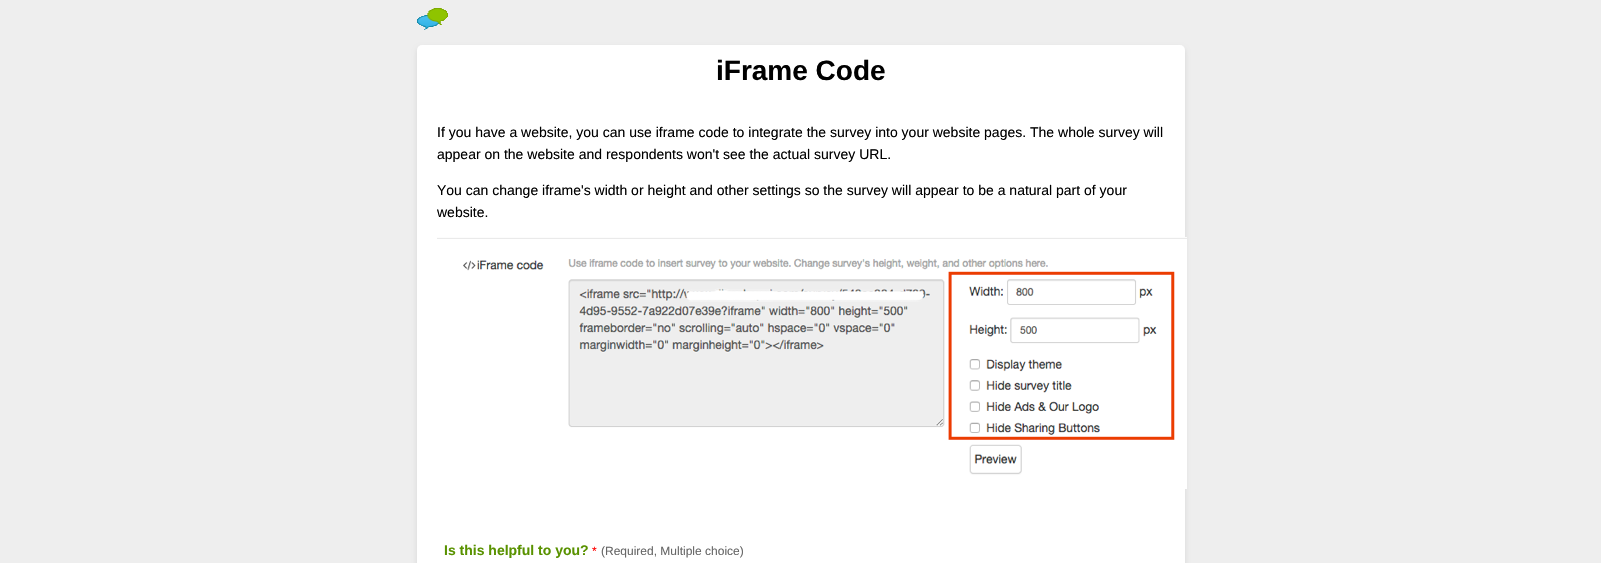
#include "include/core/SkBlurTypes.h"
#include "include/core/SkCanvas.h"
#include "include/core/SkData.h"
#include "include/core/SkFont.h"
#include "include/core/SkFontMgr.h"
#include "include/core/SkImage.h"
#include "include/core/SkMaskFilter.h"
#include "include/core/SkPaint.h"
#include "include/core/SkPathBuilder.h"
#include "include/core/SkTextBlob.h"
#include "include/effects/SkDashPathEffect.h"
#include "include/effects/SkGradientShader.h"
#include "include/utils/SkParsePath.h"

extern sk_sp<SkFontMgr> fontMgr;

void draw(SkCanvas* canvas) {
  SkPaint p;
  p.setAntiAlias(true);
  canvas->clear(SkColorSetRGB(238, 238, 238));
  canvas->drawImageRect(SkImages::DeferredFromEncodedData(SkData::MakeFromFileName("images/1.png")), SkRect::MakeLTRB(417, 8, 448, 30), SkSamplingOptions());
  p.setColor(SkColorSetARGB(26, 0, 0, 0));
  p.setMaskFilter(SkMaskFilter::MakeBlur(kNormal_SkBlurStyle, 2.5f));
  canvas->drawRoundRect(SkRect::MakeLTRB(417, 48, 1185, 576), 5, 5, p);
  p.setMaskFilter(nullptr);
  p.setColor(SK_ColorWHITE);
  canvas->drawRoundRect(SkRect::MakeLTRB(417, 45, 1185, 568), 5, 5, p);
  canvas->drawImageRect(SkImages::DeferredFromEncodedData(SkData::MakeFromFileName("images/2.png")), SkRect::MakeLTRB(437, 237, 1187, 489), SkSamplingOptions());
  SkFont font1(fontMgr->matchFamilyStyle("Liberation Sans", SkFontStyle::Bold()), 28);
  font1.setSubpixel(true);
  p.setColor(SK_ColorBLACK);
  canvas->drawString("iFrame Code", 716, 80, font1, p);
  SkFont font2(fontMgr->matchFamilyStyle("Liberation Sans", SkFontStyle::Normal()), 14);
  font2.setSubpixel(true);
  canvas->drawString("If you have a website, you can use iframe code to integrate the survey into your website pages. The whole survey will", 437, 137, font2, p);
  canvas->drawString("appear on the website and respondents won't see the actual survey URL.", 437, 159, font2, p);
  canvas->drawString("You can change iframe's width or height and other settings so the survey will appear to be a natural part of your", 437, 195, font2, p);
  canvas->drawString("website.", 437, 217, font2, p);
  SkFont font3(fontMgr->matchFamilyStyle("Liberation Sans", SkFontStyle::Bold()), 14);
  font3.setSubpixel(true);
  p.setColor(SkColorSetRGB(89, 146, 0));
  canvas->drawString("Is this helpful to you?", 444, 555, font3, p);
  SkFont font4(fontMgr->matchFamilyStyle("Liberation Sans", SkFontStyle::Normal()), 12);
  font4.setSubpixel(true);
  p.setColor(SkColorSetRGB(255, 0, 0));
  canvas->drawString("*", 592, 555, font4, p);
  p.setColor(SkColorSetRGB(102, 102, 102));
  canvas->drawString("(Required, Multiple choice)", 601, 555, font4, p);
}
